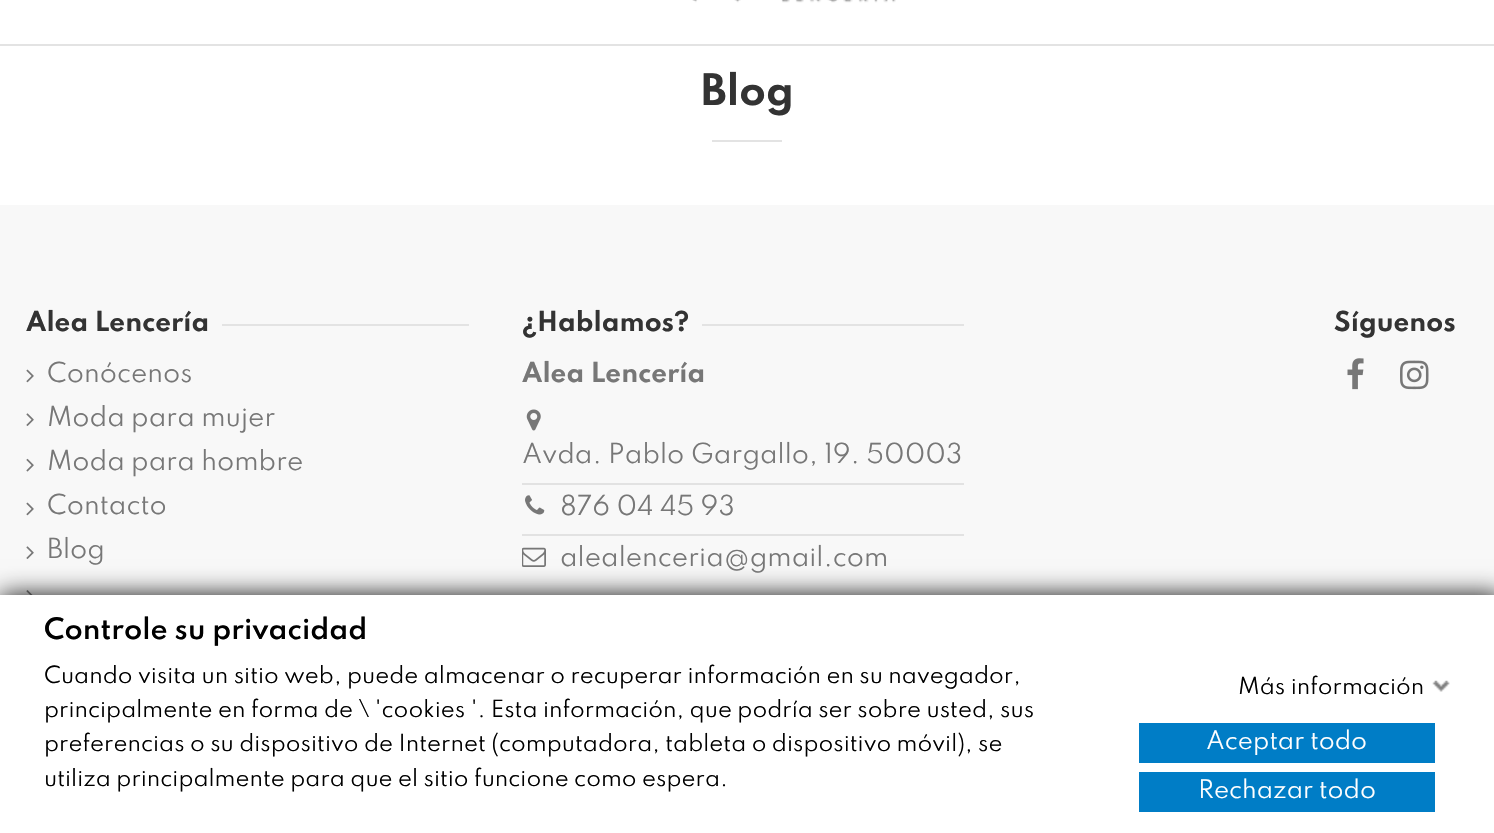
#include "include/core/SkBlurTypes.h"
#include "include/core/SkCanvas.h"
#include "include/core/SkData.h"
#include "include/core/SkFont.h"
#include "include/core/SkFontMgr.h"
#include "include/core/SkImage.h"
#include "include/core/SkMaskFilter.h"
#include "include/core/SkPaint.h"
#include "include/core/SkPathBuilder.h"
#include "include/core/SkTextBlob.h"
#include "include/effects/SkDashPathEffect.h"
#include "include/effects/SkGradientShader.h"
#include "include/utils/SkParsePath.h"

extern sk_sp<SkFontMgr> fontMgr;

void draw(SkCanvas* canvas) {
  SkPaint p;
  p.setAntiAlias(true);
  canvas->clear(SK_ColorWHITE);
  p.setColor(SkColorSetRGB(227, 227, 227));
  canvas->drawRect(SkRect::MakeLTRB(0, 44, 1494, 46), p);
  canvas->drawImageRect(SkImages::DeferredFromEncodedData(SkData::MakeFromFileName("images/1.png")), SkRect::MakeLTRB(692, 0, 896, 3), SkSamplingOptions());
  canvas->drawRect(SkRect::MakeLTRB(712, 140, 782, 142), p);
  p.setColor(SkColorSetRGB(248, 248, 248));
  canvas->drawRect(SkRect::MakeLTRB(0, 205, 1494, 595), p);
  p.setColor(SkColorSetRGB(227, 227, 227));
  canvas->drawRect(SkRect::MakeLTRB(222, 324, 469, 326), p);
  canvas->drawImageRect(SkImages::DeferredFromEncodedData(SkData::MakeFromFileName("images/2.png")), SkRect::MakeLTRB(26, 369, 34, 383), SkSamplingOptions());
  canvas->drawImageRect(SkImages::DeferredFromEncodedData(SkData::MakeFromFileName("images/3.png")), SkRect::MakeLTRB(26, 413, 34, 426), SkSamplingOptions());
  canvas->drawImageRect(SkImages::DeferredFromEncodedData(SkData::MakeFromFileName("images/4.png")), SkRect::MakeLTRB(26, 458, 34, 472), SkSamplingOptions());
  canvas->drawImageRect(SkImages::DeferredFromEncodedData(SkData::MakeFromFileName("images/2.png")), SkRect::MakeLTRB(26, 502, 34, 516), SkSamplingOptions());
  canvas->drawImageRect(SkImages::DeferredFromEncodedData(SkData::MakeFromFileName("images/3.png")), SkRect::MakeLTRB(26, 546, 34, 559), SkSamplingOptions());
  canvas->drawImageRect(SkImages::DeferredFromEncodedData(SkData::MakeFromFileName("images/5.png")), SkRect::MakeLTRB(26, 590, 33, 595), SkSamplingOptions());
  canvas->drawRect(SkRect::MakeLTRB(702, 324, 964, 326), p);
  canvas->drawImageRect(SkImages::DeferredFromEncodedData(SkData::MakeFromFileName("images/6.png")), SkRect::MakeLTRB(526, 409, 541, 431), SkSamplingOptions());
  p.setColor(SkColorSetRGB(226, 226, 226));
  canvas->drawRect(SkRect::MakeLTRB(522, 483, 964, 485), p);
  canvas->drawImageRect(SkImages::DeferredFromEncodedData(SkData::MakeFromFileName("images/7.png")), SkRect::MakeLTRB(525, 495, 545, 515), SkSamplingOptions());
  canvas->drawRect(SkRect::MakeLTRB(522, 534, 964, 536), p);
  canvas->drawImageRect(SkImages::DeferredFromEncodedData(SkData::MakeFromFileName("images/8.png")), SkRect::MakeLTRB(522, 547, 546, 567), SkSamplingOptions());
  canvas->drawImageRect(SkImages::DeferredFromEncodedData(SkData::MakeFromFileName("images/9.png")), SkRect::MakeLTRB(1347, 358, 1364, 390), SkSamplingOptions());
  canvas->drawImageRect(SkImages::DeferredFromEncodedData(SkData::MakeFromFileName("images/10.png")), SkRect::MakeLTRB(1400, 360, 1429, 390), SkSamplingOptions());
  p.setColor(SkColorSetRGB(18, 18, 18));
  p.setMaskFilter(SkMaskFilter::MakeBlur(kNormal_SkBlurStyle, 12));
  canvas->drawRect(SkRect::MakeLTRB(0, 595, 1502, 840), p);
  p.setMaskFilter(nullptr);
  p.setColor(SK_ColorWHITE);
  canvas->drawRect(SkRect::MakeLTRB(0, 595, 1494, 833), p);
  canvas->drawImageRect(SkImages::DeferredFromEncodedData(SkData::MakeFromFileName("images/11.png")), SkRect::MakeLTRB(1432, 680, 1450, 692), SkSamplingOptions());
  p.setColor(SkColorSetRGB(0, 125, 198));
  canvas->drawRect(SkRect::MakeLTRB(1139, 723, 1435, 763), p);
  canvas->drawRect(SkRect::MakeLTRB(1139, 772, 1435, 812), p);
  SkFont font1(fontMgr->matchFamilyStyle("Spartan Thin", SkFontStyle::Bold()), 38.5f);
  font1.setSubpixel(true);
  p.setColor(SkColorSetRGB(51, 51, 51));
  canvas->drawString("Blog", 701, 105, font1, p);
  SkFont font2(fontMgr->matchFamilyStyle("Spartan Thin", SkFontStyle::Bold()), 24.5f);
  font2.setSubpixel(true);
  canvas->drawString("Alea Lencería", 26, 331, font2, p);
  SkFont font3(fontMgr->matchFamilyStyle("Spartan Thin", SkFontStyle::Normal()), 24.5f);
  font3.setSubpixel(true);
  p.setColor(SkColorSetRGB(119, 119, 119));
  canvas->drawString("Conócenos", 47, 382, font3, p);
  canvas->drawString("Moda para mujer", 47, 426, font3, p);
  canvas->drawString("Moda para hombre", 47, 470, font3, p);
  canvas->drawString("Contacto", 47, 514, font3, p);
  canvas->drawString("Blog", 47, 558, font3, p);
  p.setColor(SkColorSetRGB(51, 51, 51));
  canvas->drawString("¿Hablamos?", 522, 331, font2, p);
  p.setColor(SkColorSetRGB(119, 119, 119));
  canvas->drawString("Alea Lencería", 522, 382, font2, p);
  canvas->drawString("Avda. Pablo Gargallo, 19. 50003", 522, 463, font3, p);
  canvas->drawString("876 04 45 93", 560, 515, font3, p);
  canvas->drawString("alealenceria@gmail.com", 560, 566, font3, p);
  p.setColor(SkColorSetRGB(51, 51, 51));
  canvas->drawString("Síguenos", 1334, 331, font2, p);
  SkFont font4(fontMgr->matchFamilyStyle("Spartan Thin", SkFontStyle(600, SkFontStyle::kNormal_Width, SkFontStyle::kUpright_Slant)), 26.25f);
  font4.setSubpixel(true);
  p.setColor(SK_ColorBLACK);
  canvas->drawString("Controle su privacidad", 44, 639, font4, p);
  SkFont font5(fontMgr->matchFamilyStyle("Spartan Thin", SkFontStyle::Normal()), 21);
  font5.setSubpixel(true);
  canvas->drawString("Cuando visita un sitio web, puede almacenar o recuperar información en su navegador,", 44, 683, font5, p);
  canvas->drawString("principalmente en forma de \\ 'cookies '. Esta información, que podría ser sobre usted, sus", 44, 717, font5, p);
  canvas->drawString("preferencias o su dispositivo de Internet (computadora, tableta o dispositivo móvil), se", 44, 751, font5, p);
  canvas->drawString("utiliza principalmente para que el sitio funcione como espera.", 44, 786, font5, p);
  canvas->drawString("Más información", 1238, 694, font5, p);
  SkFont font6(fontMgr->matchFamilyStyle("Spartan Thin", SkFontStyle::Normal()), 22.75f);
  font6.setSubpixel(true);
  p.setColor(SK_ColorWHITE);
  canvas->drawString("Aceptar todo", 1206, 749, font6, p);
  canvas->drawString("Rechazar todo", 1198, 798, font6, p);
}
